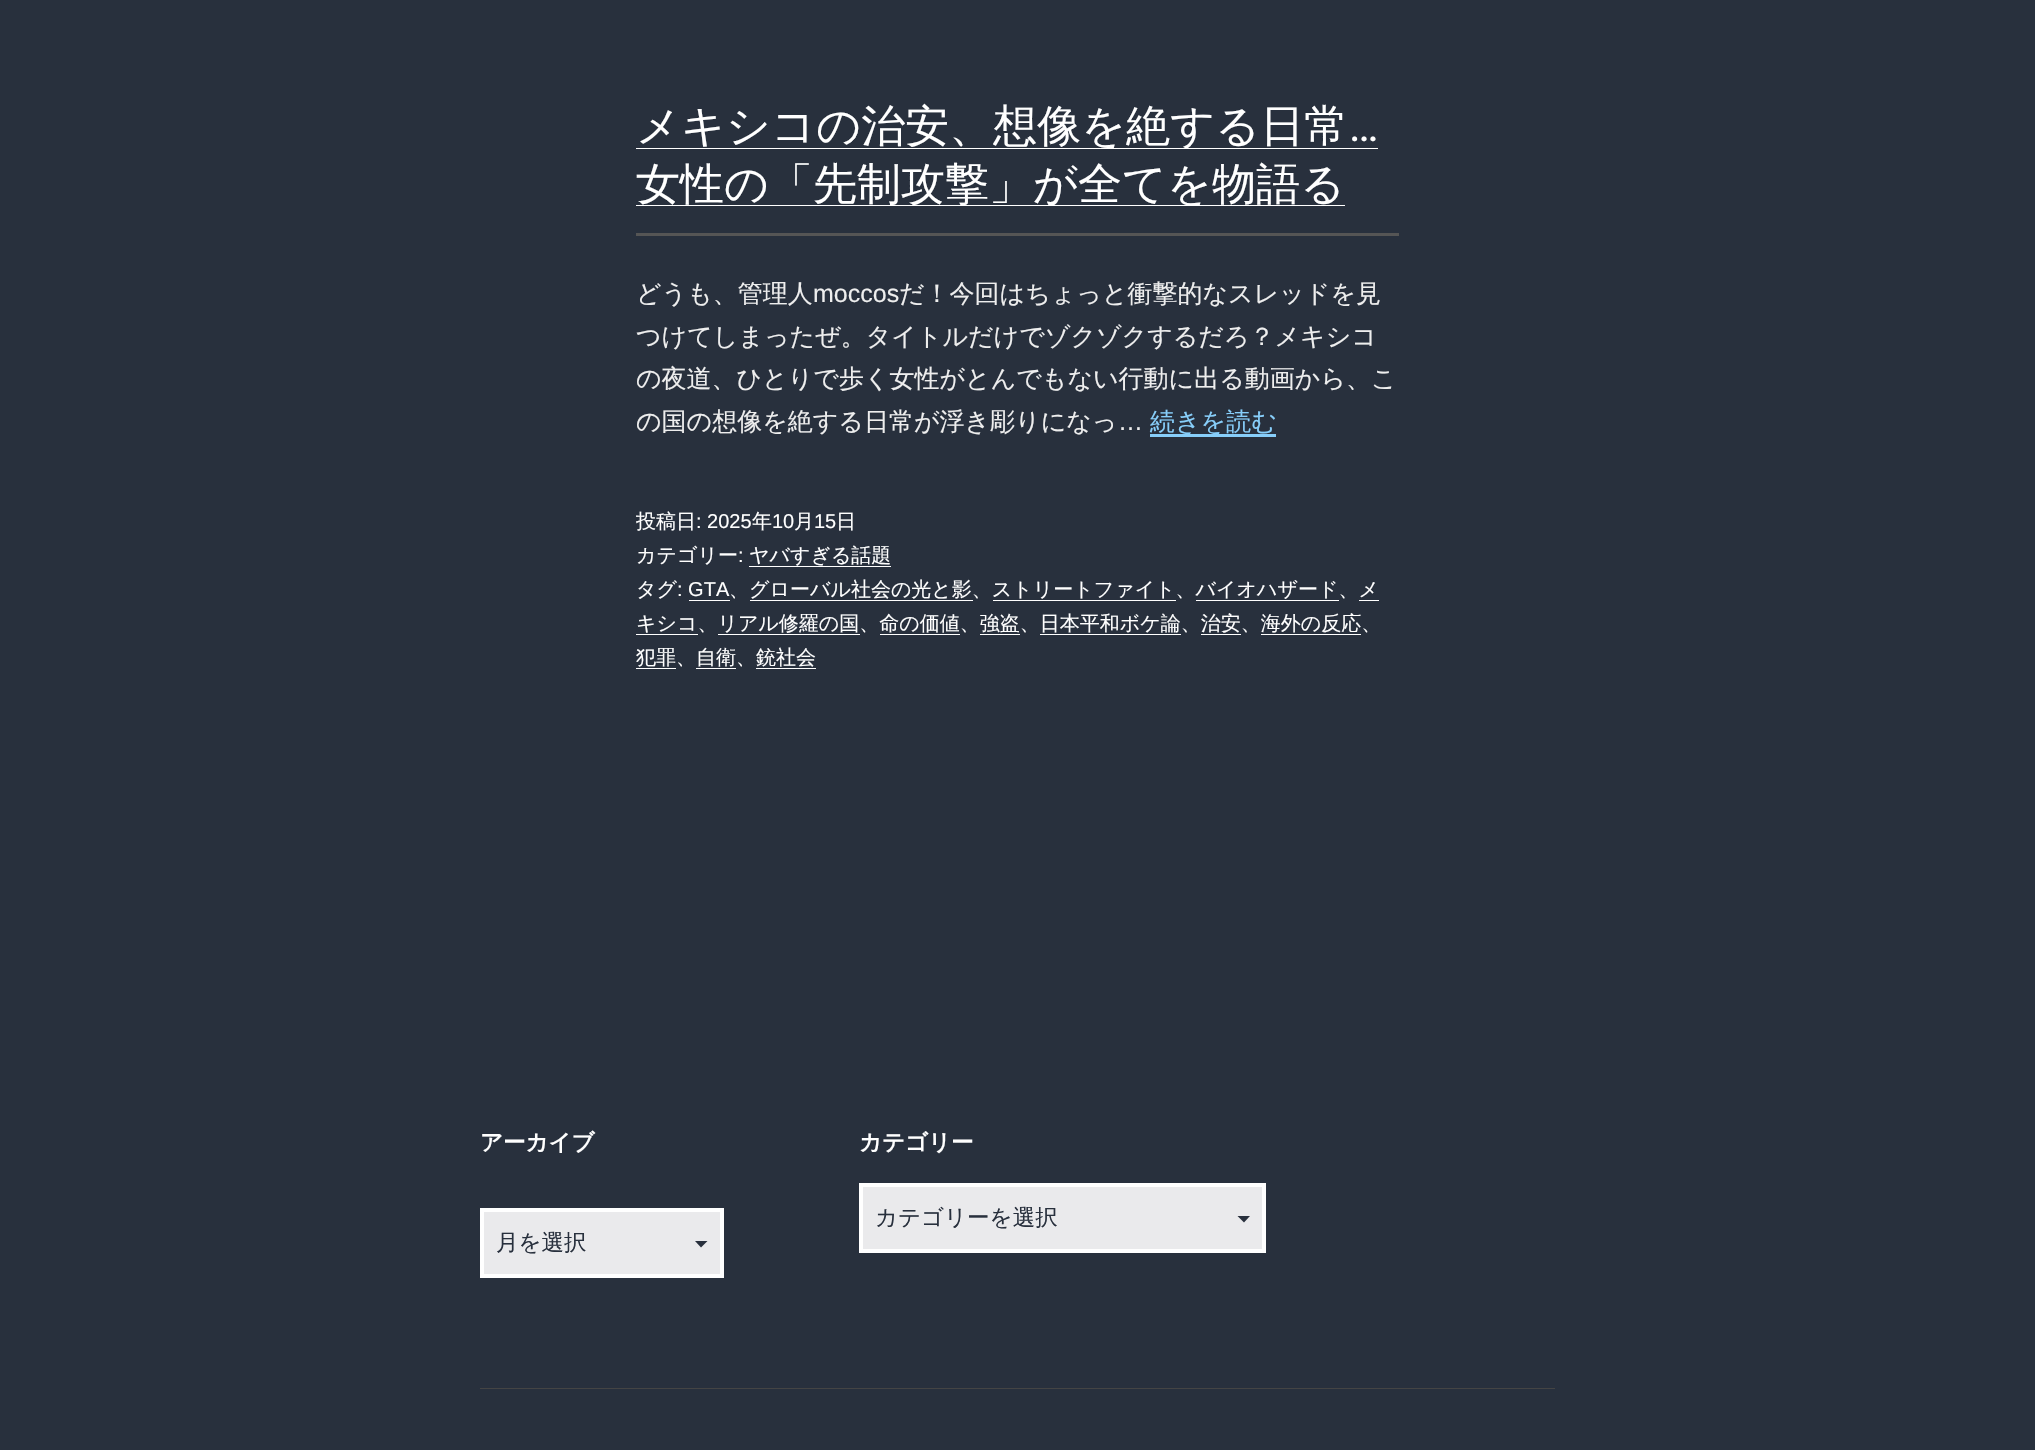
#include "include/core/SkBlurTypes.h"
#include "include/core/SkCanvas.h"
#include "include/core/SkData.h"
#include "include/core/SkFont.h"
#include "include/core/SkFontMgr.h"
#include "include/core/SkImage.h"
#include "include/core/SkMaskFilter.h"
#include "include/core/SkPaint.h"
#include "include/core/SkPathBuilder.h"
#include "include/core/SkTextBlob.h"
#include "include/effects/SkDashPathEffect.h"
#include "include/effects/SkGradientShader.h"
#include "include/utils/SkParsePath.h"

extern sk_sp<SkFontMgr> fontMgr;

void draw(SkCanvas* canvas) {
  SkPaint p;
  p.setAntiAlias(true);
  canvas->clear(SkColorSetRGB(40, 48, 61));
  p.setColor(SkColorSetRGB(85, 85, 85));
  canvas->drawRect(SkRect::MakeLTRB(636, 233, 1399, 236), p);
  p.setColor(SK_ColorWHITE);
  canvas->drawRect(SkRect::MakeLTRB(636, 148, 1378, 149), p);
  canvas->drawRect(SkRect::MakeLTRB(636, 205, 1345, 206), p);
  p.setColor(SkColorSetRGB(135, 206, 250));
  canvas->drawRect(SkRect::MakeLTRB(1150, 434, 1276, 437), p);
  p.setColor(SK_ColorWHITE);
  canvas->drawRect(SkRect::MakeLTRB(749, 566, 891, 567), p);
  canvas->drawRect(SkRect::MakeLTRB(689, 600, 730, 601), p);
  canvas->drawRect(SkRect::MakeLTRB(750, 600, 973, 601), p);
  canvas->drawRect(SkRect::MakeLTRB(993, 600, 1176, 601), p);
  canvas->drawRect(SkRect::MakeLTRB(1196, 600, 1339, 601), p);
  canvas->drawRect(SkRect::MakeLTRB(1359, 600, 1379, 601), p);
  canvas->drawRect(SkRect::MakeLTRB(636, 634, 698, 635), p);
  canvas->drawRect(SkRect::MakeLTRB(718, 634, 860, 635), p);
  canvas->drawRect(SkRect::MakeLTRB(880, 634, 960, 635), p);
  canvas->drawRect(SkRect::MakeLTRB(980, 634, 1020, 635), p);
  canvas->drawRect(SkRect::MakeLTRB(1040, 634, 1181, 635), p);
  canvas->drawRect(SkRect::MakeLTRB(1201, 634, 1241, 635), p);
  canvas->drawRect(SkRect::MakeLTRB(1261, 634, 1361, 635), p);
  canvas->drawRect(SkRect::MakeLTRB(636, 668, 676, 669), p);
  canvas->drawRect(SkRect::MakeLTRB(696, 668, 736, 669), p);
  canvas->drawRect(SkRect::MakeLTRB(756, 668, 816, 669), p);
  p.setColor(SkColorSetRGB(234, 234, 236));
  canvas->drawRect(SkRect::MakeLTRB(484, 1212, 720, 1274), p);
  p.setColor(SkColorSetRGB(40, 48, 61));
  canvas->drawPath(SkPathBuilder().moveTo(695, 1241).lineTo(707.5f, 1241).lineTo(701, 1247.5f).close().detach(), p);
  p.setStyle(SkPaint::kStroke_Style);
  p.setStrokeWidth(4);
  p.setColor(SK_ColorWHITE);
  canvas->drawRect(SkRect::MakeLTRB(482, 1210, 722, 1276), p);
  p.setStyle(SkPaint::kFill_Style);
  p.setColor(SkColorSetRGB(234, 234, 236));
  canvas->drawRect(SkRect::MakeLTRB(863, 1187, 1262, 1249), p);
  p.setColor(SkColorSetRGB(40, 48, 61));
  canvas->drawPath(SkPathBuilder().moveTo(1237.5f, 1216).lineTo(1250, 1216).lineTo(1244, 1222.5f).close().detach(), p);
  p.setStyle(SkPaint::kStroke_Style);
  p.setColor(SK_ColorWHITE);
  canvas->drawRect(SkRect::MakeLTRB(861, 1185, 1264, 1251), p);
  p.setStyle(SkPaint::kFill_Style);
  p.setColor(SkColorSetRGB(68, 68, 68));
  canvas->drawRect(SkRect::MakeLTRB(480, 1388, 1555, 1389), p);
  SkFont font1(fontMgr->matchFamilyStyle("WenQuanYi Zen Hei", SkFontStyle(500, SkFontStyle::kNormal_Width, SkFontStyle::kUpright_Slant)), 44);
  font1.setSubpixel(true);
  p.setColor(SK_ColorWHITE);
  canvas->drawString("メキシコの治安、想像を絶する日常", 636, 141, font1, p);
  SkFont font2(fontMgr->matchFamilyStyle("Roboto", SkFontStyle::Normal()), 44);
  font2.setSubpixel(true);
  canvas->drawString("…", 1349, 141, font2, p);
  canvas->drawString("女性の「先制攻撃」が全てを物語る", 636, 199, font1, p);
  SkFont font3(fontMgr->matchFamilyStyle("WenQuanYi Zen Hei", SkFontStyle(500, SkFontStyle::kNormal_Width, SkFontStyle::kUpright_Slant)), 25);
  font3.setSubpixel(true);
  p.setColor(SkColorSetRGB(238, 238, 238));
  canvas->drawString("どうも、管理人", 636, 302, font3, p);
  SkFont font4(fontMgr->matchFamilyStyle("Liberation Sans", SkFontStyle::Normal()), 25);
  font4.setSubpixel(true);
  canvas->drawString("moccos", 813, 302, font4, p);
  canvas->drawString("だ！今回はちょっと衝撃的なスレッドを見", 899, 302, font3, p);
  canvas->drawString("つけてしまったぜ。タイトルだけでゾクゾクするだろ？メキシコ", 636, 345, font3, p);
  canvas->drawString("の夜道、ひとりで歩く女性がとんでもない行動に出る動画から、こ", 636, 387, font3, p);
  canvas->drawString("の国の想像を絶する日常が浮き彫りになっ", 636, 430, font3, p);
  canvas->drawString("…", 1118, 430, font4, p);
  p.setColor(SkColorSetRGB(135, 206, 250));
  canvas->drawString("続きを読む", 1150, 430, font3, p);
  SkFont font5(fontMgr->matchFamilyStyle("WenQuanYi Zen Hei", SkFontStyle(500, SkFontStyle::kNormal_Width, SkFontStyle::kUpright_Slant)), 20);
  font5.setSubpixel(true);
  p.setColor(SK_ColorWHITE);
  canvas->drawString("投稿日", 636, 528, font5, p);
  SkFont font6(fontMgr->matchFamilyStyle("Liberation Sans", SkFontStyle::Normal()), 20);
  font6.setSubpixel(true);
  canvas->drawString(": 2025", 696, 528, font6, p);
  canvas->drawString("年", 752, 528, font5, p);
  canvas->drawString("10", 772, 528, font6, p);
  canvas->drawString("月", 794, 528, font5, p);
  canvas->drawString("15", 814, 528, font6, p);
  canvas->drawString("日", 836, 528, font5, p);
  canvas->drawString("カテゴリー", 636, 562, font5, p);
  canvas->drawString(":", 738, 562, font6, p);
  canvas->drawString("ヤバすぎる話題", 749, 562, font5, p);
  canvas->drawString("タグ", 636, 596, font5, p);
  canvas->drawString(": GTA", 677, 596, font6, p);
  canvas->drawString("、グローバル社会の光と影、ストリートファイト、バイオハザード、メ", 729, 596, font5, p);
  canvas->drawString("キシコ、リアル修羅の国、命の価値、強盗、日本平和ボケ論、治安、海外の反応、", 636, 630, font5, p);
  canvas->drawString("犯罪、自衛、銃社会", 636, 664, font5, p);
  SkFont font7(fontMgr->matchFamilyStyle("WenQuanYi Zen Hei", SkFontStyle::Bold()), 22.5f);
  font7.setSubpixel(true);
  canvas->drawString("アーカイブ", 480, 1150, font7, p);
  SkFont font8(fontMgr->matchFamilyStyle("WenQuanYi Zen Hei", SkFontStyle(500, SkFontStyle::kNormal_Width, SkFontStyle::kUpright_Slant)), 22.5f);
  font8.setSubpixel(true);
  p.setColor(SkColorSetRGB(40, 48, 61));
  canvas->drawString("月を選択", 496, 1250, font8, p);
  p.setColor(SK_ColorWHITE);
  canvas->drawString("カテゴリー", 859, 1150, font7, p);
  p.setColor(SkColorSetRGB(40, 48, 61));
  canvas->drawString("カテゴリーを選択", 875, 1225, font8, p);
}
